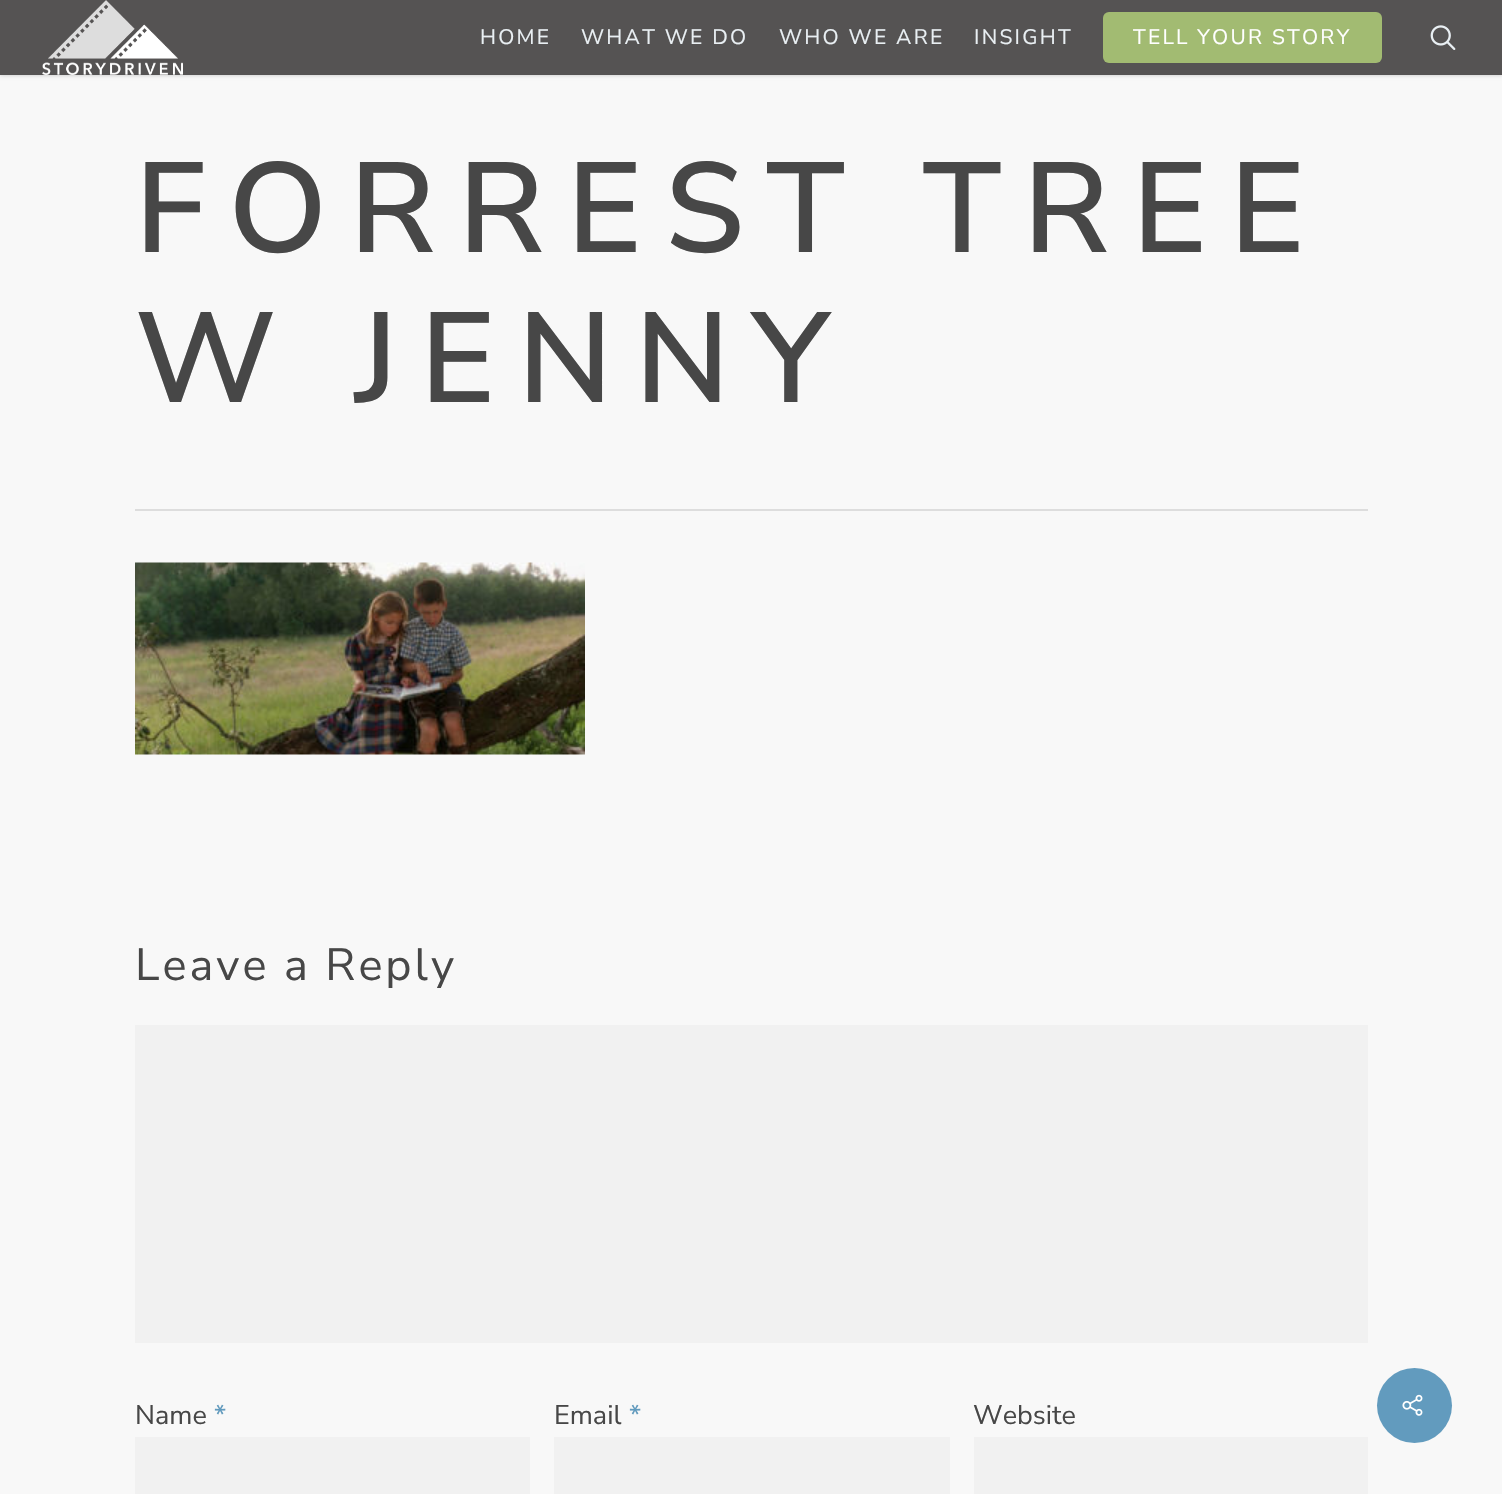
#include "include/core/SkBlurTypes.h"
#include "include/core/SkCanvas.h"
#include "include/core/SkData.h"
#include "include/core/SkFont.h"
#include "include/core/SkFontMgr.h"
#include "include/core/SkImage.h"
#include "include/core/SkMaskFilter.h"
#include "include/core/SkPaint.h"
#include "include/core/SkPathBuilder.h"
#include "include/core/SkTextBlob.h"
#include "include/effects/SkDashPathEffect.h"
#include "include/effects/SkGradientShader.h"
#include "include/utils/SkParsePath.h"

extern sk_sp<SkFontMgr> fontMgr;

void draw(SkCanvas* canvas) {
  SkPaint p;
  p.setAntiAlias(true);
  auto spacedText = [&](const char* s, float x, float y, const SkFont& font, const SkPaint& ink, float letter, float word) {
    std::vector<SkGlyphID> glyphs(font.countText(s, strlen(s), SkTextEncoding::kUTF8));
    std::vector<float> xs(glyphs.size());
    font.textToGlyphs(s, strlen(s), SkTextEncoding::kUTF8, glyphs);
    font.getXPos(glyphs, xs, x);
    float extra = 0;
    for (size_t i = 0; i < glyphs.size(); i++) {
      xs[i] += extra;
      extra += letter + word * (glyphs[i] == font.unicharToGlyph(' '));
    }
    canvas->drawTextBlob(SkTextBlob::MakeFromPosHGlyphs(glyphs, xs, y, font), 0, 0, ink);
  };
  canvas->clear(SkColorSetRGB(248, 248, 248));
  p.setColor(SkColorSetARGB(56, 0, 0, 0));
  p.setMaskFilter(SkMaskFilter::MakeBlur(kNormal_SkBlurStyle, 2));
  canvas->drawRect(SkRect::MakeLTRB(0, 0, 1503, 75), p);
  p.setMaskFilter(nullptr);
  p.setColor(SkColorSetRGB(85, 83, 83));
  canvas->drawRect(SkRect::MakeLTRB(0, 0, 1502, 75), p);
  canvas->drawImageRect(SkImages::DeferredFromEncodedData(SkData::MakeFromFileName("images/1.png")), SkRect::MakeLTRB(42, 0, 183, 75), SkSamplingOptions());
  p.setColor(SkColorSetRGB(162, 187, 114));
  canvas->drawRoundRect(SkRect::MakeLTRB(1103, 12, 1382, 63), 6, 6, p);
  canvas->drawImageRect(SkImages::DeferredFromEncodedData(SkData::MakeFromFileName("images/2.png")), SkRect::MakeLTRB(1430, 25, 1456, 50), SkSamplingOptions());
  p.setColor(SkColorSetRGB(221, 221, 221));
  canvas->drawRect(SkRect::MakeLTRB(135, 509, 1368, 511), p);
  canvas->drawImageRect(SkImages::DeferredFromEncodedData(SkData::MakeFromFileName("images/3.png")), SkRect::MakeLTRB(135, 562, 585, 755), SkSamplingOptions());
  p.setColor(SkColorSetRGB(241, 241, 241));
  canvas->drawRect(SkRect::MakeLTRB(135, 1025, 1368, 1343), p);
  canvas->drawRect(SkRect::MakeLTRB(135, 1437, 530, 1494), p);
  canvas->drawRect(SkRect::MakeLTRB(554, 1437, 950, 1494), p);
  canvas->drawRect(SkRect::MakeLTRB(974, 1437, 1368, 1494), p);
  p.setColor(SkColorSetRGB(98, 155, 190));
  canvas->drawCircle(1414.5f, 1405.5f, 37.5f, p);
  canvas->drawImageRect(SkImages::DeferredFromEncodedData(SkData::MakeFromFileName("images/4.png")), SkRect::MakeLTRB(1402, 1394, 1423, 1416), SkSamplingOptions());
  SkFont font1(fontMgr->matchFamilyStyle("Nunito Sans", SkFontStyle::Normal()), 21);
  font1.setSubpixel(true);
  p.setColor(SkColorSetRGB(233, 239, 243));
  spacedText("HOME", 480, 44, font1, p, 2.25f, 0);
  spacedText("WHAT WE DO", 581, 44, font1, p, 2.25f, 0);
  spacedText("WHO WE ARE", 779, 44, font1, p, 2.25f, 0);
  spacedText("INSIGHT", 974, 44, font1, p, 2.25f, 0);
  p.setColor(SK_ColorWHITE);
  spacedText("TELL YOUR STORY", 1133, 44, font1, p, 2.25f, 0);
  SkFont font2(fontMgr->matchFamilyStyle("Nunito Sans", SkFontStyle(600, SkFontStyle::kNormal_Width, SkFontStyle::kUpright_Slant)), 127.5f);
  font2.setSubpixel(true);
  p.setColor(SkColorSetRGB(71, 71, 71));
  spacedText("FORREST TREE", 135, 252, font2, p, 22.5f, 0);
  spacedText("W JENNY", 135, 402, font2, p, 22.5f, 0);
  SkFont font3(fontMgr->matchFamilyStyle("Nunito Sans", SkFontStyle::Normal()), 45);
  font3.setSubpixel(true);
  spacedText("Leave a Reply", 135, 980, font3, p, 3, 0);
  SkFont font4(fontMgr->matchFamilyStyle("Nunito Sans", SkFontStyle::Normal()), 27);
  font4.setSubpixel(true);
  canvas->drawString("Name", 135, 1424, font4, p);
  p.setColor(SkColorSetRGB(98, 155, 190));
  canvas->drawString("*", 214, 1424, font4, p);
  p.setColor(SkColorSetRGB(71, 71, 71));
  canvas->drawString("Email", 554, 1424, font4, p);
  p.setColor(SkColorSetRGB(98, 155, 190));
  canvas->drawString("*", 629, 1424, font4, p);
  p.setColor(SkColorSetRGB(71, 71, 71));
  canvas->drawString("Website", 973, 1424, font4, p);
}
